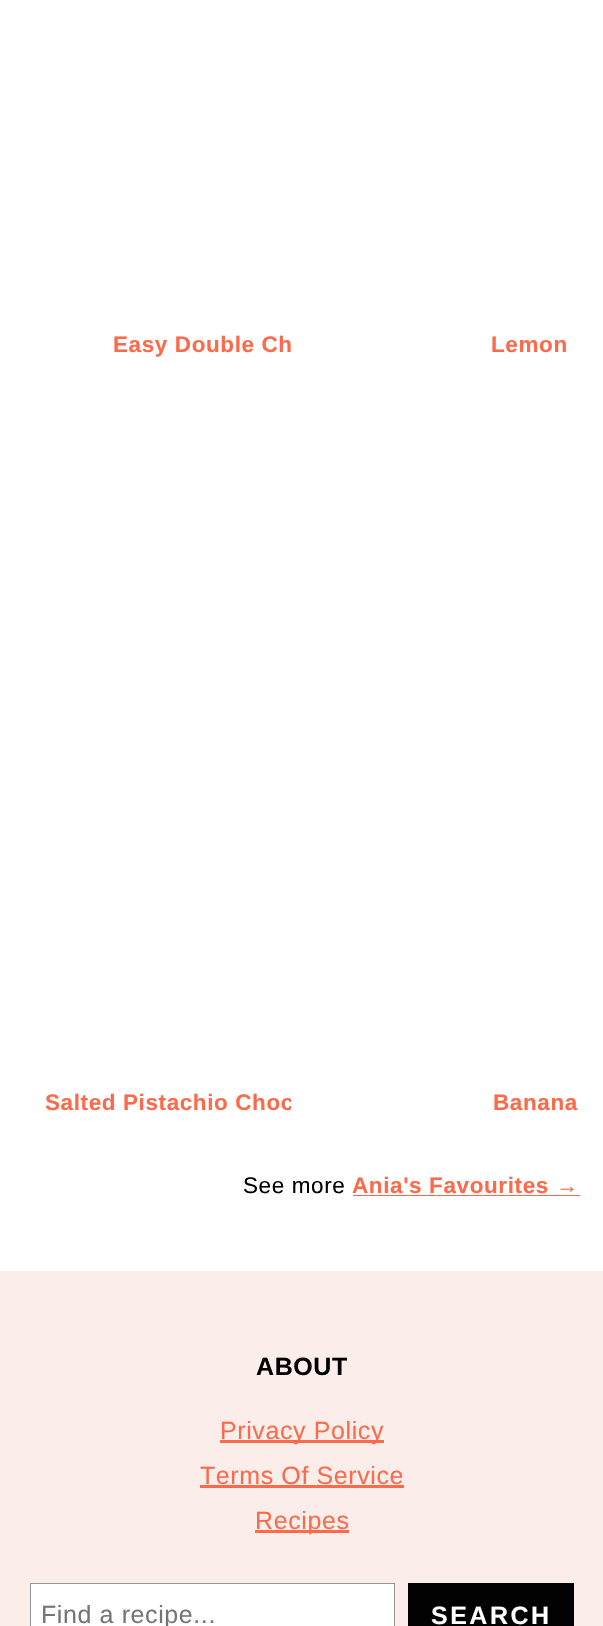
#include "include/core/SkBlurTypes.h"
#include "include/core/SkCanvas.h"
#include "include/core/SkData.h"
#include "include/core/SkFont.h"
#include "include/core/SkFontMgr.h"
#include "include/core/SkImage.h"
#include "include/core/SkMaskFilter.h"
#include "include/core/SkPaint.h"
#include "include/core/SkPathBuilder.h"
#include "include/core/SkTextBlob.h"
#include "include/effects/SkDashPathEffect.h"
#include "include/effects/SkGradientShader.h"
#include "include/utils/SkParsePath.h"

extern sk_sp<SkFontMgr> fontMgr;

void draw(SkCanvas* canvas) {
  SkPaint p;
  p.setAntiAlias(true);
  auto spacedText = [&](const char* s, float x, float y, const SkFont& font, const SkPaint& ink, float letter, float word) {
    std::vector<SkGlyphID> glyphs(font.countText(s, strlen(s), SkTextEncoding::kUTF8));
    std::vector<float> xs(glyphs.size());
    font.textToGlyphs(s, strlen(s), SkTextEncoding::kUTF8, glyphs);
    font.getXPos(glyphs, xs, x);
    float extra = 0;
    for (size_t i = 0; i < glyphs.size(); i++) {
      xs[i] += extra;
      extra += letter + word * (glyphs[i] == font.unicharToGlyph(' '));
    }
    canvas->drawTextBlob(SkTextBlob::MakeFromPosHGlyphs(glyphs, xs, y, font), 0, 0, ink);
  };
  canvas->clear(SK_ColorWHITE);
  p.setColor(SkColorSetRGB(251, 106, 74));
  canvas->drawRect(SkRect::MakeLTRB(353, 1195, 580, 1196), p);
  p.setColor(SkColorSetRGB(251, 238, 234));
  canvas->drawRect(SkRect::MakeLTRB(0, 1271, 603, 1626), p);
  p.setColor(SkColorSetRGB(251, 106, 74));
  canvas->drawRect(SkRect::MakeLTRB(220, 1440, 384, 1443), p);
  canvas->drawRect(SkRect::MakeLTRB(200, 1485, 404, 1488), p);
  canvas->drawRect(SkRect::MakeLTRB(255, 1530, 349, 1533), p);
  p.setColor(SK_ColorWHITE);
  canvas->drawRect(SkRect::MakeLTRB(30.5f, 1583.5f, 394.5f, 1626.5f), p);
  p.setStyle(SkPaint::kStroke_Style);
  p.setStrokeWidth(1);
  p.setColor(SkColorSetRGB(148, 148, 148));
  canvas->drawRect(SkRect::MakeLTRB(30.5f, 1583.5f, 394.5f, 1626.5f), p);
  p.setStyle(SkPaint::kFill_Style);
  p.setColor(SkColorSetRGB(1, 1, 1));
  canvas->drawRect(SkRect::MakeLTRB(408, 1583, 574, 1626), p);
  canvas->save();
  canvas->clipRect(SkRect::MakeLTRB(24, 0, 291, 386));
  SkFont font1(fontMgr->matchFamilyStyle("Liberation Sans", SkFontStyle::Bold()), 22.5f);
  font1.setSubpixel(true);
  p.setColor(SkColorSetRGB(251, 106, 74));
  spacedText("Easy Double Ch", 113, 352, font1, p, 0.6f, 0);
  canvas->restore();
  spacedText("Lemon", 491, 352, font1, p, 0.6f, 0);
  canvas->save();
  canvas->clipRect(SkRect::MakeLTRB(24, 458, 291, 1145));
  spacedText("Salted Pistachio Choc", 45, 1110, font1, p, 0.6f, 0);
  canvas->restore();
  spacedText("Banana", 493, 1110, font1, p, 0.6f, 0);
  SkFont font2(fontMgr->matchFamilyStyle("Liberation Sans", SkFontStyle::Normal()), 22.5f);
  font2.setSubpixel(true);
  p.setColor(SkColorSetRGB(1, 1, 1));
  spacedText("See more", 243, 1193, font2, p, 0.6f, 0);
  p.setColor(SkColorSetRGB(251, 106, 74));
  spacedText("Ania's Favourites →", 352, 1193, font1, p, 0.6f, 0);
  SkFont font3(fontMgr->matchFamilyStyle("Liberation Sans", SkFontStyle::Bold()), 25);
  font3.setSubpixel(true);
  p.setColor(SkColorSetRGB(1, 1, 1));
  spacedText("ABOUT", 256, 1375, font3, p, 0.6f, 0);
  SkFont font4(fontMgr->matchFamilyStyle("Liberation Sans", SkFontStyle::Normal()), 25);
  font4.setSubpixel(true);
  p.setColor(SkColorSetRGB(251, 106, 74));
  spacedText("Privacy Policy", 220, 1439, font4, p, 0.6f, 0);
  spacedText("Terms Of Service", 200, 1484, font4, p, 0.6f, 0);
  spacedText("Recipes", 255, 1529, font4, p, 0.6f, 0);
  p.setColor(SkColorSetRGB(117, 117, 117));
  spacedText("Find a recipe...", 41, 1623, font4, p, 0.6f, 0);
  p.setColor(SK_ColorWHITE);
  spacedText("SEARCH", 431, 1624, font3, p, 2.5f, 0);
}
